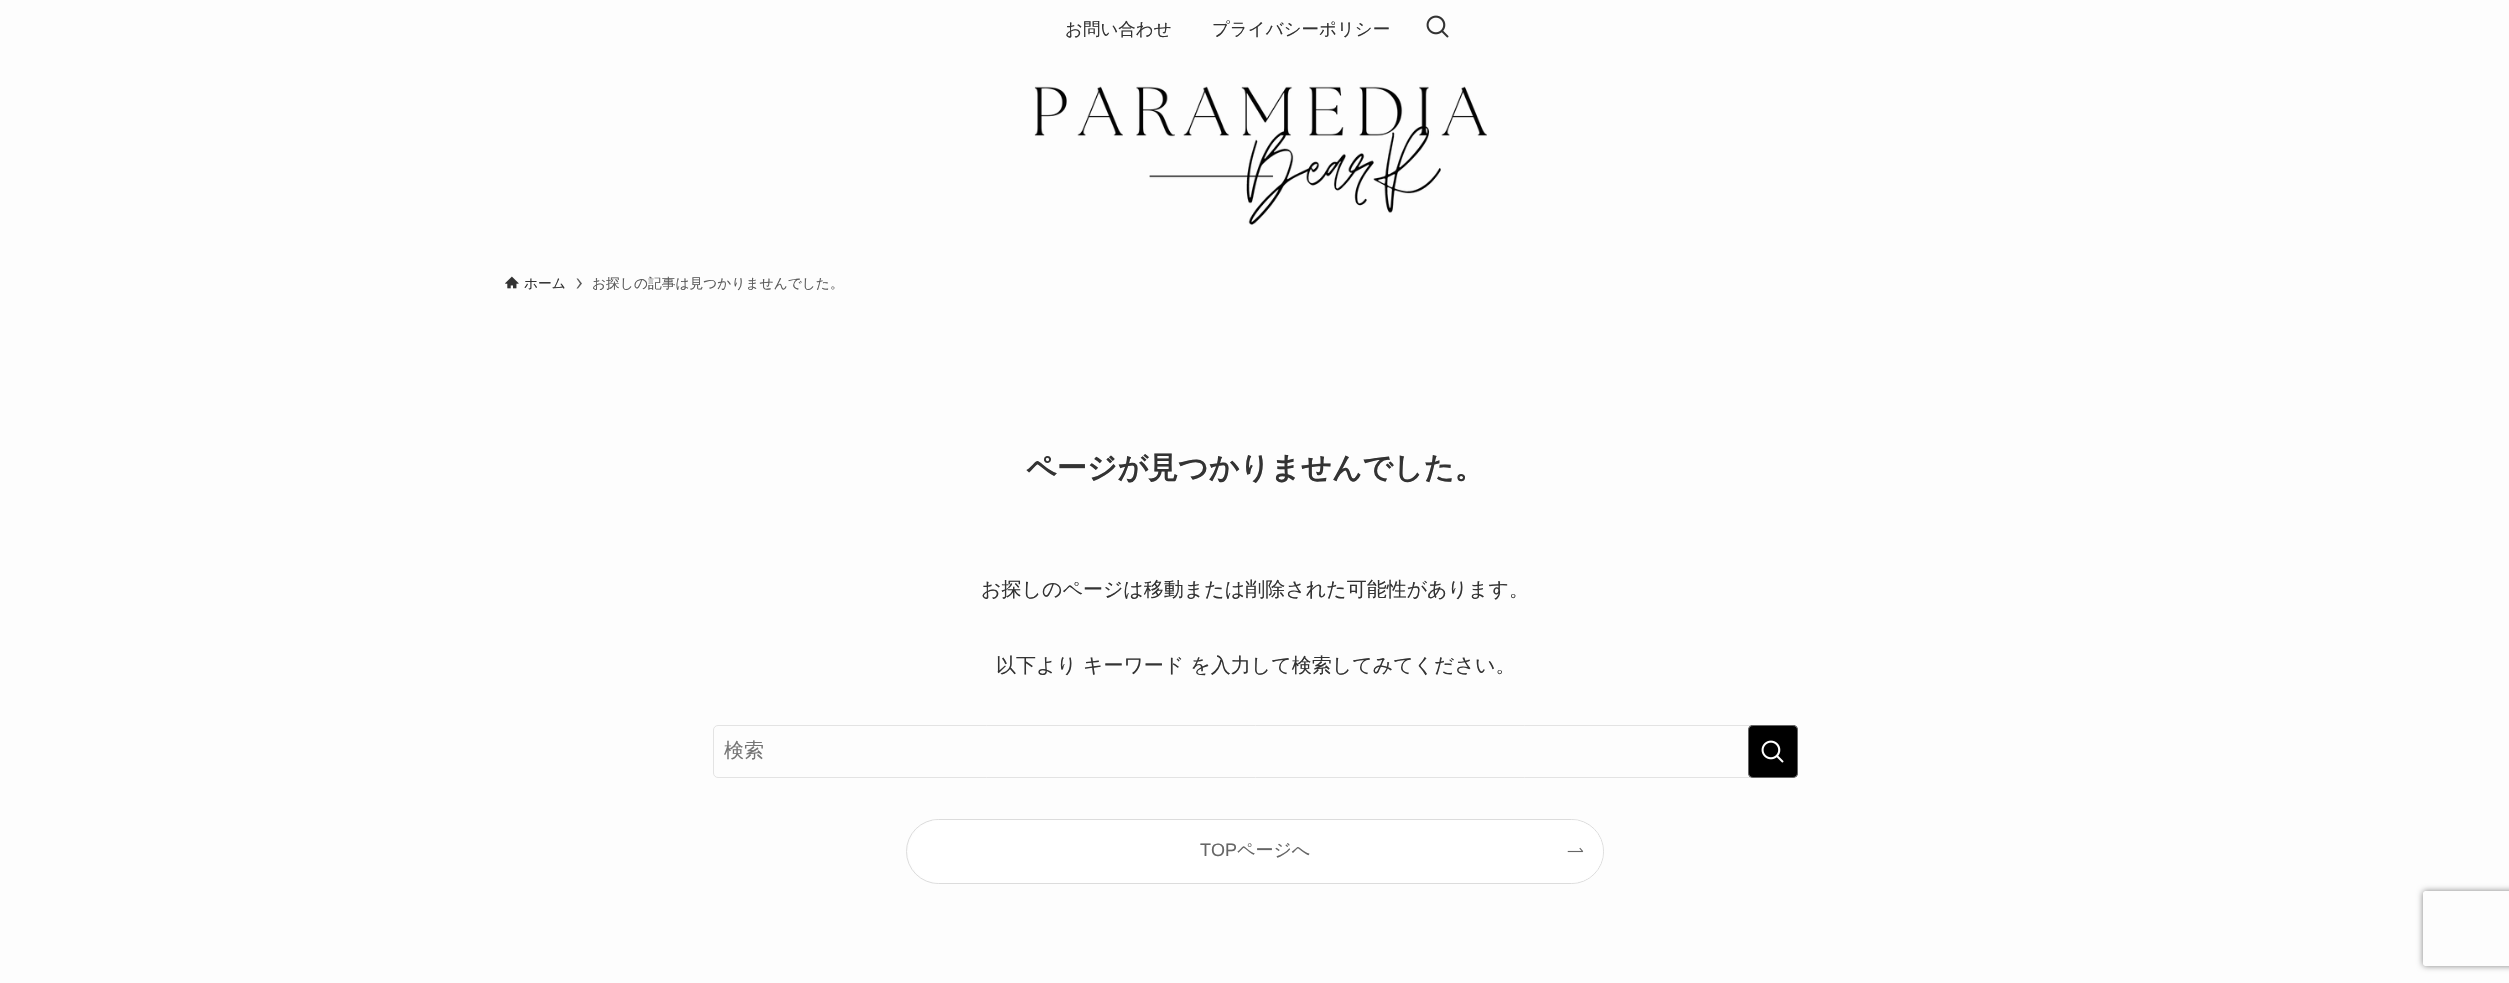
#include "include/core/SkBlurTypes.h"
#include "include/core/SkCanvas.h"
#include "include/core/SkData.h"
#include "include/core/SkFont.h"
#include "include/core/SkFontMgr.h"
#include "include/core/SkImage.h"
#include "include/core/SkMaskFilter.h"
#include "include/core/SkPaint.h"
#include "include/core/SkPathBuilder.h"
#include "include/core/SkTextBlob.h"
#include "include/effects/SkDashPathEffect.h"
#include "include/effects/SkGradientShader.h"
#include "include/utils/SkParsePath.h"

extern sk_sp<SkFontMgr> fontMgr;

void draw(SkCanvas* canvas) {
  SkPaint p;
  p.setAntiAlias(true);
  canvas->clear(SkColorSetRGB(253, 253, 253));
  canvas->drawImageRect(SkImages::DeferredFromEncodedData(SkData::MakeFromFileName("images/1.png")), SkRect::MakeLTRB(1426, 15, 1449, 38), SkSamplingOptions());
  canvas->drawImageRect(SkImages::DeferredFromEncodedData(SkData::MakeFromFileName("images/2.png")), SkRect::MakeLTRB(1034, 86, 1487, 225), SkSamplingOptions());
  canvas->drawImageRect(SkImages::DeferredFromEncodedData(SkData::MakeFromFileName("images/3.png")), SkRect::MakeLTRB(505, 276, 519, 289), SkSamplingOptions());
  p.setColor(SkColorSetRGB(91, 91, 91));
  canvas->drawPath(SkPathBuilder().moveTo(578, 278.5f).lineTo(576.5f, 278.5f).lineTo(580, 283.5f).lineTo(576.5f, 288.5f).lineTo(578, 288.5f).lineTo(582, 283.5f).close().detach(), p);
  p.setStyle(SkPaint::kStroke_Style);
  p.setStrokeWidth(1);
  p.setColor(SkColorSetRGB(227, 227, 227));
  canvas->drawRoundRect(SkRect::MakeLTRB(713.5f, 725.5f, 1797.5f, 777.5f), 4.5f, 4.5f, p);
  p.setStyle(SkPaint::kFill_Style);
  p.setColor(SK_ColorBLACK);
  canvas->drawRoundRect(SkRect::MakeLTRB(1748, 725, 1798, 778), 5, 5, p);
  p.setStyle(SkPaint::kStroke_Style);
  p.setColor(SkColorSetARGB(128, 199, 199, 199));
  canvas->drawRoundRect(SkRect::MakeLTRB(1748.5f, 725.5f, 1797.5f, 777.5f), 4.5f, 4.5f, p);
  canvas->drawImageRect(SkImages::DeferredFromEncodedData(SkData::MakeFromFileName("images/4.png")), SkRect::MakeLTRB(1761, 740, 1784, 763), SkSamplingOptions());
  p.setColor(SkColorSetRGB(220, 220, 220));
  canvas->drawRoundRect(SkRect::MakeLTRB(906.5f, 819.5f, 1603.5f, 883.5f), 32, 32, p);
  p.setStyle(SkPaint::kFill_Style);
  p.setColor(SK_ColorWHITE);
  canvas->drawRoundRect(SkRect::MakeLTRB(908, 820, 1603, 883), 31.5f, 31.5f, p);
  canvas->drawImageRect(SkImages::DeferredFromEncodedData(SkData::MakeFromFileName("images/5.png")), SkRect::MakeLTRB(1567, 847, 1584, 853), SkSamplingOptions());
  canvas->save();
  canvas->clipPath(SkPathBuilder(SkPathFillType::kEvenOdd).moveTo(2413, 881).lineTo(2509, 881).lineTo(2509, 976).lineTo(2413, 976).close().moveTo(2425.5f, 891).lineTo(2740.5f, 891).cubicTo(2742, 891, 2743, 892, 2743, 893.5f).lineTo(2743, 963.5f).cubicTo(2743, 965, 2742, 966, 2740.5f, 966).lineTo(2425.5f, 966).cubicTo(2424, 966, 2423, 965, 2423, 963.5f).lineTo(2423, 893.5f).cubicTo(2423, 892, 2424, 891, 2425.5f, 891).close().detach(), true);
  p.setColor(SkColorSetRGB(128, 128, 128));
  p.setMaskFilter(SkMaskFilter::MakeBlur(kNormal_SkBlurStyle, 3));
  canvas->drawRoundRect(SkRect::MakeLTRB(2423, 891, 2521, 966), 2.5f, 2.5f, p);
  p.setMaskFilter(nullptr);
  canvas->restore();
  SkFont font1(fontMgr->matchFamilyStyle("WenQuanYi Zen Hei", SkFontStyle(500, SkFontStyle::kNormal_Width, SkFontStyle::kUpright_Slant)), 17.5f);
  font1.setSubpixel(true);
  p.setColor(SkColorSetRGB(51, 51, 51));
  canvas->drawString("お問い合わせ", 1065, 35, font1, p);
  canvas->drawString("プライバシーポリシー", 1212, 35, font1, p);
  SkFont font2(fontMgr->matchFamilyStyle("WenQuanYi Zen Hei", SkFontStyle(500, SkFontStyle::kNormal_Width, SkFontStyle::kUpright_Slant)), 13.75f);
  font2.setSubpixel(true);
  canvas->drawString("ホーム", 524, 288, font2, p);
  p.setColor(SkColorSetRGB(91, 91, 91));
  canvas->drawString("お探しの記事は見つかりませんでした。", 592, 288, font2, p);
  SkFont font3(fontMgr->matchFamilyStyle("WenQuanYi Zen Hei", SkFontStyle::Bold()), 30);
  font3.setSubpixel(true);
  p.setColor(SkColorSetRGB(51, 51, 51));
  canvas->drawString("ページが見つかりませんでした。", 1026, 478, font3, p);
  SkFont font4(fontMgr->matchFamilyStyle("WenQuanYi Zen Hei", SkFontStyle(500, SkFontStyle::kNormal_Width, SkFontStyle::kUpright_Slant)), 20);
  font4.setSubpixel(true);
  canvas->drawString("お探しのページは移動または削除された可能性があります。", 981, 596, font4, p);
  canvas->drawString("以下より キーワード を入力して検索してみてください。", 996, 672, font4, p);
  p.setColor(SkColorSetRGB(117, 117, 117));
  canvas->drawString("検索", 724, 757, font4, p);
  SkFont font5(fontMgr->matchFamilyStyle("Liberation Sans", SkFontStyle::Normal()), 18);
  font5.setSubpixel(true);
  p.setColor(SkColorSetRGB(102, 102, 102));
  canvas->drawString("TOP", 1200, 856, font5, p);
  SkFont font6(fontMgr->matchFamilyStyle("WenQuanYi Zen Hei", SkFontStyle(500, SkFontStyle::kNormal_Width, SkFontStyle::kUpright_Slant)), 18);
  font6.setSubpixel(true);
  canvas->drawString("ページへ", 1237, 856, font6, p);
}
